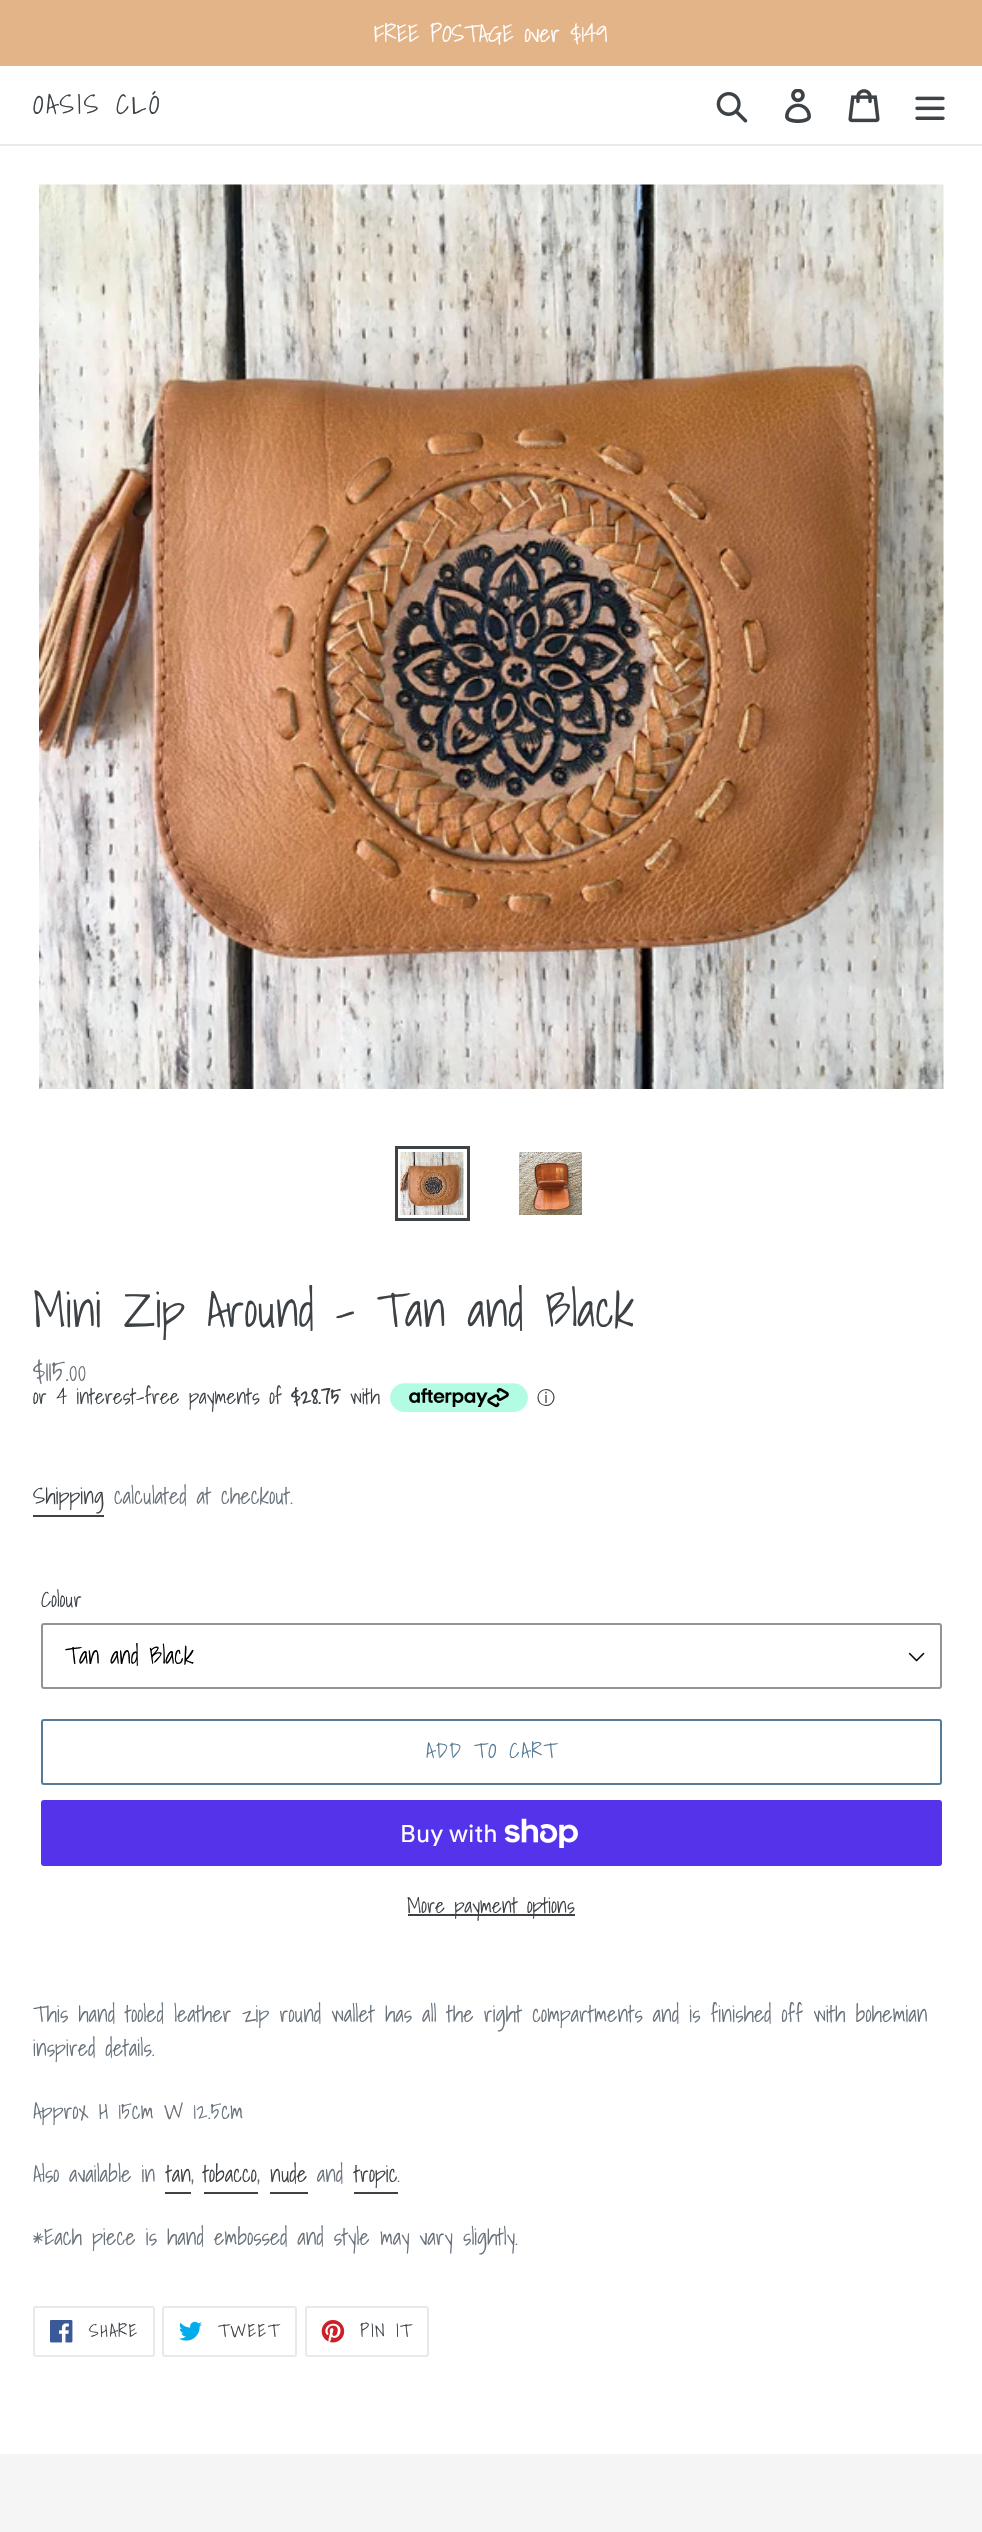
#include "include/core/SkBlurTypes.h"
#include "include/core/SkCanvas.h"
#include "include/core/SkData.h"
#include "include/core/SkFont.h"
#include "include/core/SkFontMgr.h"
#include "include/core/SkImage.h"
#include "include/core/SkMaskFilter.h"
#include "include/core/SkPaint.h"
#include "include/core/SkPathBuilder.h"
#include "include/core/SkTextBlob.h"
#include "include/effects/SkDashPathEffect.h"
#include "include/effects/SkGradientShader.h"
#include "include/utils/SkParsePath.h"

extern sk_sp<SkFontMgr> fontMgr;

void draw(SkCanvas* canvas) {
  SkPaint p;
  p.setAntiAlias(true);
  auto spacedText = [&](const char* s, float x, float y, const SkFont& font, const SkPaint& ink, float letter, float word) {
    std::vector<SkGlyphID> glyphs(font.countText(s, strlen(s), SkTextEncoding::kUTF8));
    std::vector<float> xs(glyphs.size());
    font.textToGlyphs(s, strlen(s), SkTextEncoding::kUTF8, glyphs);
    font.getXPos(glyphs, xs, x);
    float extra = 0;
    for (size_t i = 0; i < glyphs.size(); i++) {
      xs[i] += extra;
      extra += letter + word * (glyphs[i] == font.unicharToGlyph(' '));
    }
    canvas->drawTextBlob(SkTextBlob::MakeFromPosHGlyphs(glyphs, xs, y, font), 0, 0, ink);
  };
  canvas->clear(SK_ColorWHITE);
  p.setColor(SkColorSetRGB(228, 180, 137));
  canvas->drawRect(SkRect::MakeLTRB(0, 0, 982, 66), p);
  p.setColor(SkColorSetRGB(232, 233, 235));
  canvas->drawRect(SkRect::MakeLTRB(0, 144, 982, 146), p);
  canvas->drawImageRect(SkImages::DeferredFromEncodedData(SkData::MakeFromFileName("images/1.png")), SkRect::MakeLTRB(716, 92, 748, 123), SkSamplingOptions());
  canvas->drawImageRect(SkImages::DeferredFromEncodedData(SkData::MakeFromFileName("images/2.png")), SkRect::MakeLTRB(785, 89, 811, 123), SkSamplingOptions());
  canvas->drawImageRect(SkImages::DeferredFromEncodedData(SkData::MakeFromFileName("images/3.png")), SkRect::MakeLTRB(848, 89, 880, 123), SkSamplingOptions());
  canvas->drawImageRect(SkImages::DeferredFromEncodedData(SkData::MakeFromFileName("images/4.png")), SkRect::MakeLTRB(915, 96, 945, 120), SkSamplingOptions());
  canvas->drawImageRect(SkImages::DeferredFromEncodedData(SkData::MakeFromFileName("images/5.png")), SkRect::MakeLTRB(39, 184, 944, 1089), SkSamplingOptions());
  p.setStyle(SkPaint::kStroke_Style);
  p.setStrokeWidth(3);
  p.setColor(SkColorSetRGB(61, 66, 70));
  canvas->drawRect(SkRect::MakeLTRB(396.5f, 1147.5f, 468.5f, 1219.5f), p);
  canvas->drawImageRect(SkImages::DeferredFromEncodedData(SkData::MakeFromFileName("images/6.png")), SkRect::MakeLTRB(400, 1152, 464, 1215), SkSamplingOptions());
  canvas->drawImageRect(SkImages::DeferredFromEncodedData(SkData::MakeFromFileName("images/7.png")), SkRect::MakeLTRB(519, 1152, 582, 1215), SkSamplingOptions());
  canvas->drawImageRect(SkImages::DeferredFromEncodedData(SkData::MakeFromFileName("images/8.png")), SkRect::MakeLTRB(390, 1383, 528, 1412), SkSamplingOptions());
  p.setStyle(SkPaint::kFill_Style);
  canvas->drawRect(SkRect::MakeLTRB(33, 1515, 104, 1517), p);
  canvas->drawImageRect(SkImages::DeferredFromEncodedData(SkData::MakeFromFileName("images/9.png")), SkRect::MakeLTRB(908, 1652, 925, 1662), SkSamplingOptions());
  p.setStyle(SkPaint::kStroke_Style);
  p.setStrokeWidth(2);
  p.setColor(SkColorSetRGB(148, 148, 148));
  canvas->drawRoundRect(SkRect::MakeLTRB(42, 1624, 941, 1688), 2, 2, p);
  p.setColor(SkColorSetRGB(85, 123, 151));
  canvas->drawRoundRect(SkRect::MakeLTRB(42, 1720, 941, 1784), 2, 2, p);
  p.setStyle(SkPaint::kFill_Style);
  p.setColor(SkColorSetRGB(84, 51, 235));
  canvas->drawRoundRect(SkRect::MakeLTRB(41, 1800, 942, 1866), 3, 3, p);
  canvas->drawImageRect(SkImages::DeferredFromEncodedData(SkData::MakeFromFileName("images/10.png")), SkRect::MakeLTRB(504, 1818, 578, 1848), SkSamplingOptions());
  p.setColor(SkColorSetRGB(61, 66, 70));
  canvas->drawRect(SkRect::MakeLTRB(408, 1914, 575, 1916), p);
  canvas->drawRect(SkRect::MakeLTRB(165, 2192, 191, 2194), p);
  canvas->drawRect(SkRect::MakeLTRB(204, 2192, 258, 2194), p);
  canvas->drawRect(SkRect::MakeLTRB(270, 2192, 308, 2194), p);
  canvas->drawRect(SkRect::MakeLTRB(354, 2192, 398, 2194), p);
  p.setStyle(SkPaint::kStroke_Style);
  p.setColor(SkColorSetRGB(232, 233, 235));
  canvas->drawRoundRect(SkRect::MakeLTRB(34, 2307, 154, 2356), 2, 2, p);
  canvas->drawImageRect(SkImages::DeferredFromEncodedData(SkData::MakeFromFileName("images/11.png")), SkRect::MakeLTRB(50, 2320, 73, 2343), SkSamplingOptions());
  canvas->drawRoundRect(SkRect::MakeLTRB(163, 2307, 296, 2356), 2, 2, p);
  canvas->drawImageRect(SkImages::DeferredFromEncodedData(SkData::MakeFromFileName("images/12.png")), SkRect::MakeLTRB(179, 2321, 202, 2341), SkSamplingOptions());
  canvas->drawRoundRect(SkRect::MakeLTRB(306, 2307, 428, 2356), 2, 2, p);
  canvas->drawImageRect(SkImages::DeferredFromEncodedData(SkData::MakeFromFileName("images/13.png")), SkRect::MakeLTRB(321, 2320, 345, 2343), SkSamplingOptions());
  p.setStyle(SkPaint::kFill_Style);
  p.setColor(SkColorSetRGB(245, 245, 245));
  canvas->drawRect(SkRect::MakeLTRB(0, 2454, 982, 2532), p);
  SkFont font1(fontMgr->matchFamilyStyle("Shadows Into Light", SkFontStyle::Normal()), 24);
  font1.setSubpixel(true);
  p.setColor(SK_ColorWHITE);
  canvas->drawString("FREE POSTAGE over $149", 374, 42, font1, p);
  SkFont font2(fontMgr->matchFamilyStyle("Shadows Into Light", SkFontStyle::Normal()), 27);
  font2.setSubpixel(true);
  p.setColor(SkColorSetRGB(61, 66, 70));
  spacedText("OASIS CLÓ", 33, 114, font2, p, 2.75f, 0);
  SkFont font3(fontMgr->matchFamilyStyle("Shadows Into Light", SkFontStyle::Normal()), 48);
  font3.setSubpixel(true);
  canvas->drawString("Mini Zip Around - Tan and Black", 33, 1327, font3, p);
  SkFont font4(fontMgr->matchFamilyStyle("Shadows Into Light", SkFontStyle::Normal()), 28);
  font4.setSubpixel(true);
  p.setColor(SkColorSetRGB(105, 114, 123));
  canvas->drawString("$115.00", 33, 1381, font4, p);
  SkFont font5(fontMgr->matchFamilyStyle("Shadows Into Light", SkFontStyle::Normal()), 21);
  font5.setSubpixel(true);
  p.setColor(SkColorSetRGB(61, 66, 70));
  canvas->drawString("or 4 interest-free payments of", 33, 1404, font5, p);
  SkFont font6(fontMgr->matchFamilyStyle("Shadows Into Light", SkFontStyle::Bold()), 21);
  font6.setSubpixel(true);
  canvas->drawString("$28.75", 291, 1404, font6, p);
  canvas->drawString("with", 350, 1404, font5, p);
  SkFont font7(fontMgr->matchFamilyStyle("WenQuanYi Zen Hei", SkFontStyle(500, SkFontStyle::kNormal_Width, SkFontStyle::kUpright_Slant)), 18);
  font7.setSubpixel(true);
  canvas->drawString("ⓘ", 537, 1404, font7, p);
  SkFont font8(fontMgr->matchFamilyStyle("Shadows Into Light", SkFontStyle::Normal()), 22.5f);
  font8.setSubpixel(true);
  canvas->drawString("Shipping", 33, 1504, font8, p);
  p.setColor(SkColorSetRGB(105, 114, 123));
  canvas->drawString("calculated at checkout.", 114, 1504, font8, p);
  p.setColor(SkColorSetRGB(61, 66, 70));
  canvas->drawString("Colour", 41, 1607, font5, p);
  p.setColor(SK_ColorBLACK);
  canvas->drawString("Tan and Black", 65, 1664, font1, p);
  p.setColor(SkColorSetRGB(85, 123, 151));
  spacedText("ADD TO CART", 426, 1758, font5, p, 1.75f, 0);
  SkFont font9(fontMgr->matchFamilyStyle("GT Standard", SkFontStyle::Normal()), 24);
  font9.setSubpixel(true);
  p.setColor(SK_ColorWHITE);
  canvas->drawString("Buy with", 400, 1842, font9, p);
  p.setColor(SkColorSetRGB(61, 66, 70));
  canvas->drawString("More payment options", 407, 1913, font5, p);
  p.setColor(SkColorSetRGB(105, 114, 123));
  canvas->drawString("This hand tooled leather zip round wallet has all the right compartments and is finished off with bohemian", 33, 2022, font8, p);
  canvas->drawString("inspired details.", 33, 2056, font8, p);
  canvas->drawString("Approx H 15cm W 12.5cm", 33, 2119, font8, p);
  canvas->drawString("Also available in", 33, 2182, font8, p);
  p.setColor(SkColorSetRGB(61, 66, 70));
  canvas->drawString("tan", 166, 2182, font8, p);
  p.setColor(SkColorSetRGB(105, 114, 123));
  canvas->drawString(",", 191, 2182, font8, p);
  p.setColor(SkColorSetRGB(61, 66, 70));
  canvas->drawString("tobacco", 203, 2182, font8, p);
  p.setColor(SkColorSetRGB(105, 114, 123));
  canvas->drawString(",", 257, 2182, font8, p);
  p.setColor(SkColorSetRGB(61, 66, 70));
  canvas->drawString("nude", 270, 2182, font8, p);
  p.setColor(SkColorSetRGB(105, 114, 123));
  canvas->drawString("and", 317, 2182, font8, p);
  p.setColor(SkColorSetRGB(61, 66, 70));
  canvas->drawString("tropic", 354, 2182, font8, p);
  p.setColor(SkColorSetRGB(105, 114, 123));
  canvas->drawString(".", 397, 2182, font8, p);
  canvas->drawString("*Each piece is hand embossed and style may vary slightly.", 33, 2245, font8, p);
  SkFont font10(fontMgr->matchFamilyStyle("Shadows Into Light", SkFontStyle::Normal()), 18);
  font10.setSubpixel(true);
  p.setColor(SkColorSetRGB(61, 66, 70));
  spacedText("SHARE", 89, 2337, font10, p, 1.5f, 0);
  spacedText("TWEET", 218, 2337, font10, p, 1.5f, 0);
  spacedText("PIN IT", 360, 2337, font10, p, 1.5f, 0);
}
